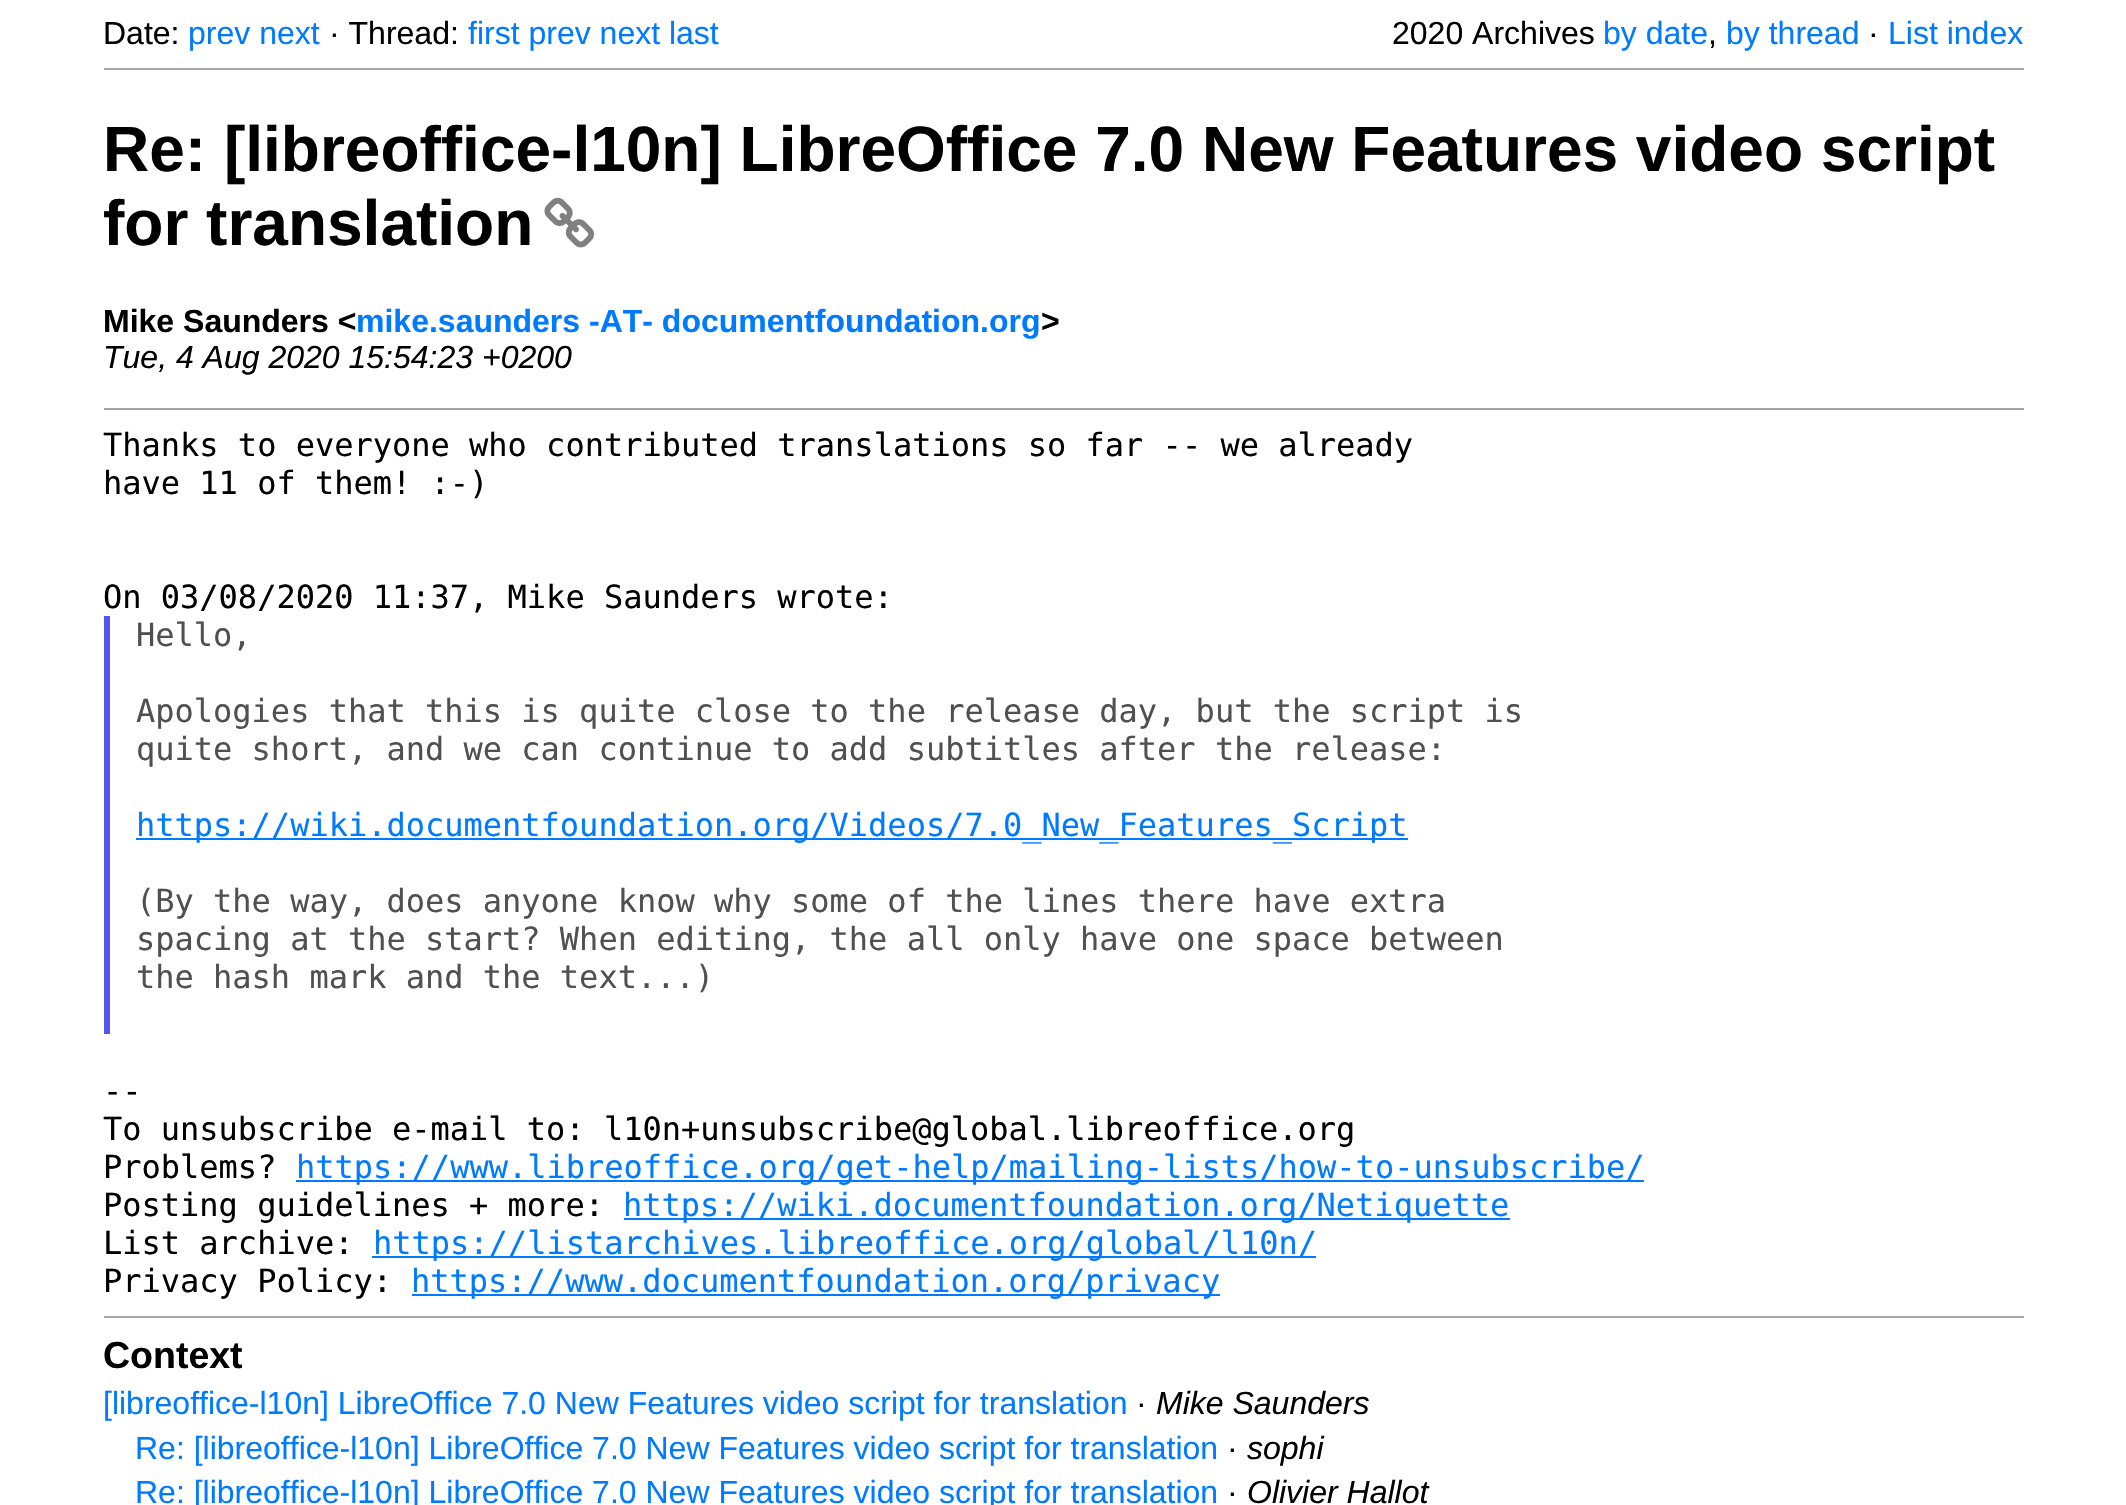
#include "include/core/SkBlurTypes.h"
#include "include/core/SkCanvas.h"
#include "include/core/SkData.h"
#include "include/core/SkFont.h"
#include "include/core/SkFontMgr.h"
#include "include/core/SkImage.h"
#include "include/core/SkMaskFilter.h"
#include "include/core/SkPaint.h"
#include "include/core/SkPathBuilder.h"
#include "include/core/SkTextBlob.h"
#include "include/effects/SkDashPathEffect.h"
#include "include/effects/SkGradientShader.h"
#include "include/utils/SkParsePath.h"

extern sk_sp<SkFontMgr> fontMgr;

void draw(SkCanvas* canvas) {
  SkPaint p;
  p.setAntiAlias(true);
  canvas->clear(SK_ColorWHITE);
  p.setColor(SkColorSetRGB(166, 166, 166));
  canvas->drawRect(SkRect::MakeLTRB(104, 68, 2024, 70), p);
  canvas->drawImageRect(SkImages::DeferredFromEncodedData(SkData::MakeFromFileName("images/1.png")), SkRect::MakeLTRB(544, 197, 594, 248), SkSamplingOptions());
  canvas->drawRect(SkRect::MakeLTRB(104, 408, 2024, 410), p);
  p.setColor(SkColorSetRGB(85, 85, 238));
  canvas->drawRect(SkRect::MakeLTRB(104, 616, 110, 1034), p);
  p.setColor(SkColorSetRGB(0, 123, 255));
  canvas->drawRect(SkRect::MakeLTRB(136, 838, 1408, 840), p);
  canvas->drawRect(SkRect::MakeLTRB(296, 1180, 1644, 1182), p);
  canvas->drawRect(SkRect::MakeLTRB(624, 1218, 1510, 1220), p);
  canvas->drawRect(SkRect::MakeLTRB(372, 1256, 1316, 1258), p);
  canvas->drawRect(SkRect::MakeLTRB(412, 1294, 1220, 1296), p);
  p.setColor(SkColorSetRGB(166, 166, 166));
  canvas->drawRect(SkRect::MakeLTRB(104, 1316, 2024, 1318), p);
  SkFont font1(fontMgr->matchFamilyStyle("Liberation Sans", SkFontStyle::Normal()), 32);
  font1.setSubpixel(true);
  p.setColor(SK_ColorBLACK);
  canvas->drawString("Date:", 103, 44, font1, p);
  p.setColor(SkColorSetRGB(0, 123, 255));
  canvas->drawString("prev next", 188, 44, font1, p);
  p.setColor(SK_ColorBLACK);
  canvas->drawString("· Thread:", 329, 44, font1, p);
  p.setColor(SkColorSetRGB(0, 123, 255));
  canvas->drawString("first prev next last", 468, 44, font1, p);
  p.setColor(SK_ColorBLACK);
  canvas->drawString("2020 Archives", 1392, 44, font1, p);
  p.setColor(SkColorSetRGB(0, 123, 255));
  canvas->drawString("by date", 1603, 44, font1, p);
  canvas->drawString("by thread", 1726, 44, font1, p);
  p.setColor(SK_ColorBLACK);
  canvas->drawString("·", 1868, 44, font1, p);
  p.setColor(SkColorSetRGB(0, 123, 255));
  canvas->drawString("List index", 1888, 44, font1, p);
  p.setColor(SK_ColorBLACK);
  canvas->drawString(",", 1708, 44, font1, p);
  SkFont font2(fontMgr->matchFamilyStyle("Liberation Sans", SkFontStyle::Bold()), 64);
  font2.setSubpixel(true);
  canvas->drawString("Re: [libreoffice-l10n] LibreOffice 7.0 New Features video script", 103, 171, font2, p);
  canvas->drawString("for translation", 103, 245, font2, p);
  SkFont font3(fontMgr->matchFamilyStyle("Liberation Sans", SkFontStyle::Bold()), 32);
  font3.setSubpixel(true);
  canvas->drawString("Mike Saunders <", 103, 332, font3, p);
  p.setColor(SkColorSetRGB(0, 123, 255));
  canvas->drawString("mike.saunders -AT- documentfoundation.org", 356, 332, font3, p);
  p.setColor(SK_ColorBLACK);
  canvas->drawString(">", 1041, 332, font3, p);
  SkFont font4(fontMgr->matchFamilyStyle("Liberation Sans", SkFontStyle::Italic()), 32);
  font4.setSubpixel(true);
  canvas->drawString("Tue, 4 Aug 2020 15:54:23 +0200", 103, 368, font4, p);
  SkFont font5(fontMgr->matchFamilyStyle("DejaVu Sans Mono", SkFontStyle::Normal()), 32);
  font5.setSubpixel(true);
  canvas->drawString("Thanks to everyone who contributed translations so far -- we already", 103, 456, font5, p);
  canvas->drawString("have 11 of them! :-)", 103, 494, font5, p);
  canvas->drawString("On 03/08/2020 11:37, Mike Saunders wrote:", 103, 608, font5, p);
  p.setColor(SkColorSetRGB(80, 80, 80));
  canvas->drawString("Hello,", 136, 646, font5, p);
  canvas->drawString("Apologies that this is quite close to the release day, but the script is", 136, 722, font5, p);
  canvas->drawString("quite short, and we can continue to add subtitles after the release:", 136, 760, font5, p);
  p.setColor(SkColorSetRGB(0, 123, 255));
  canvas->drawString("https://wiki.documentfoundation.org/Videos/7.0_New_Features_Script", 136, 836, font5, p);
  p.setColor(SkColorSetRGB(80, 80, 80));
  canvas->drawString("(By the way, does anyone know why some of the lines there have extra", 136, 912, font5, p);
  canvas->drawString("spacing at the start? When editing, the all only have one space between", 136, 950, font5, p);
  canvas->drawString("the hash mark and the text...)", 136, 988, font5, p);
  p.setColor(SK_ColorBLACK);
  canvas->drawString("--", 103, 1102, font5, p);
  canvas->drawString("To unsubscribe e-mail to: l10n+unsubscribe@global.libreoffice.org", 103, 1140, font5, p);
  canvas->drawString("Problems?", 103, 1178, font5, p);
  p.setColor(SkColorSetRGB(0, 123, 255));
  canvas->drawString("https://www.libreoffice.org/get-help/mailing-lists/how-to-unsubscribe/", 296, 1178, font5, p);
  p.setColor(SK_ColorBLACK);
  canvas->drawString("Posting guidelines + more:", 103, 1216, font5, p);
  p.setColor(SkColorSetRGB(0, 123, 255));
  canvas->drawString("https://wiki.documentfoundation.org/Netiquette", 623, 1216, font5, p);
  p.setColor(SK_ColorBLACK);
  canvas->drawString("List archive:", 103, 1254, font5, p);
  p.setColor(SkColorSetRGB(0, 123, 255));
  canvas->drawString("https://listarchives.libreoffice.org/global/l10n/", 373, 1254, font5, p);
  p.setColor(SK_ColorBLACK);
  canvas->drawString("Privacy Policy:", 103, 1292, font5, p);
  p.setColor(SkColorSetRGB(0, 123, 255));
  canvas->drawString("https://www.documentfoundation.org/privacy", 411, 1292, font5, p);
  SkFont font6(fontMgr->matchFamilyStyle("Liberation Sans", SkFontStyle::Bold()), 37.5f);
  font6.setSubpixel(true);
  p.setColor(SK_ColorBLACK);
  canvas->drawString("Context", 103, 1368, font6, p);
  p.setColor(SkColorSetRGB(0, 123, 255));
  canvas->drawString("[libreoffice-l10n] LibreOffice 7.0 New Features video script for translation", 103, 1414, font1, p);
  p.setColor(SK_ColorBLACK);
  canvas->drawString("·", 1136, 1414, font1, p);
  canvas->drawString("Mike Saunders", 1156, 1414, font4, p);
  p.setColor(SkColorSetRGB(0, 123, 255));
  canvas->drawString("Re: [libreoffice-l10n] LibreOffice 7.0 New Features video script for translation", 135, 1459, font1, p);
  p.setColor(SK_ColorBLACK);
  canvas->drawString("·", 1227, 1459, font1, p);
  canvas->drawString("sophi", 1247, 1459, font4, p);
  p.setColor(SkColorSetRGB(0, 123, 255));
  canvas->drawString("Re: [libreoffice-l10n] LibreOffice 7.0 New Features video script for translation", 135, 1503, font1, p);
  p.setColor(SK_ColorBLACK);
  canvas->drawString("·", 1227, 1503, font1, p);
  canvas->drawString("Olivier Hallot", 1247, 1503, font4, p);
}
